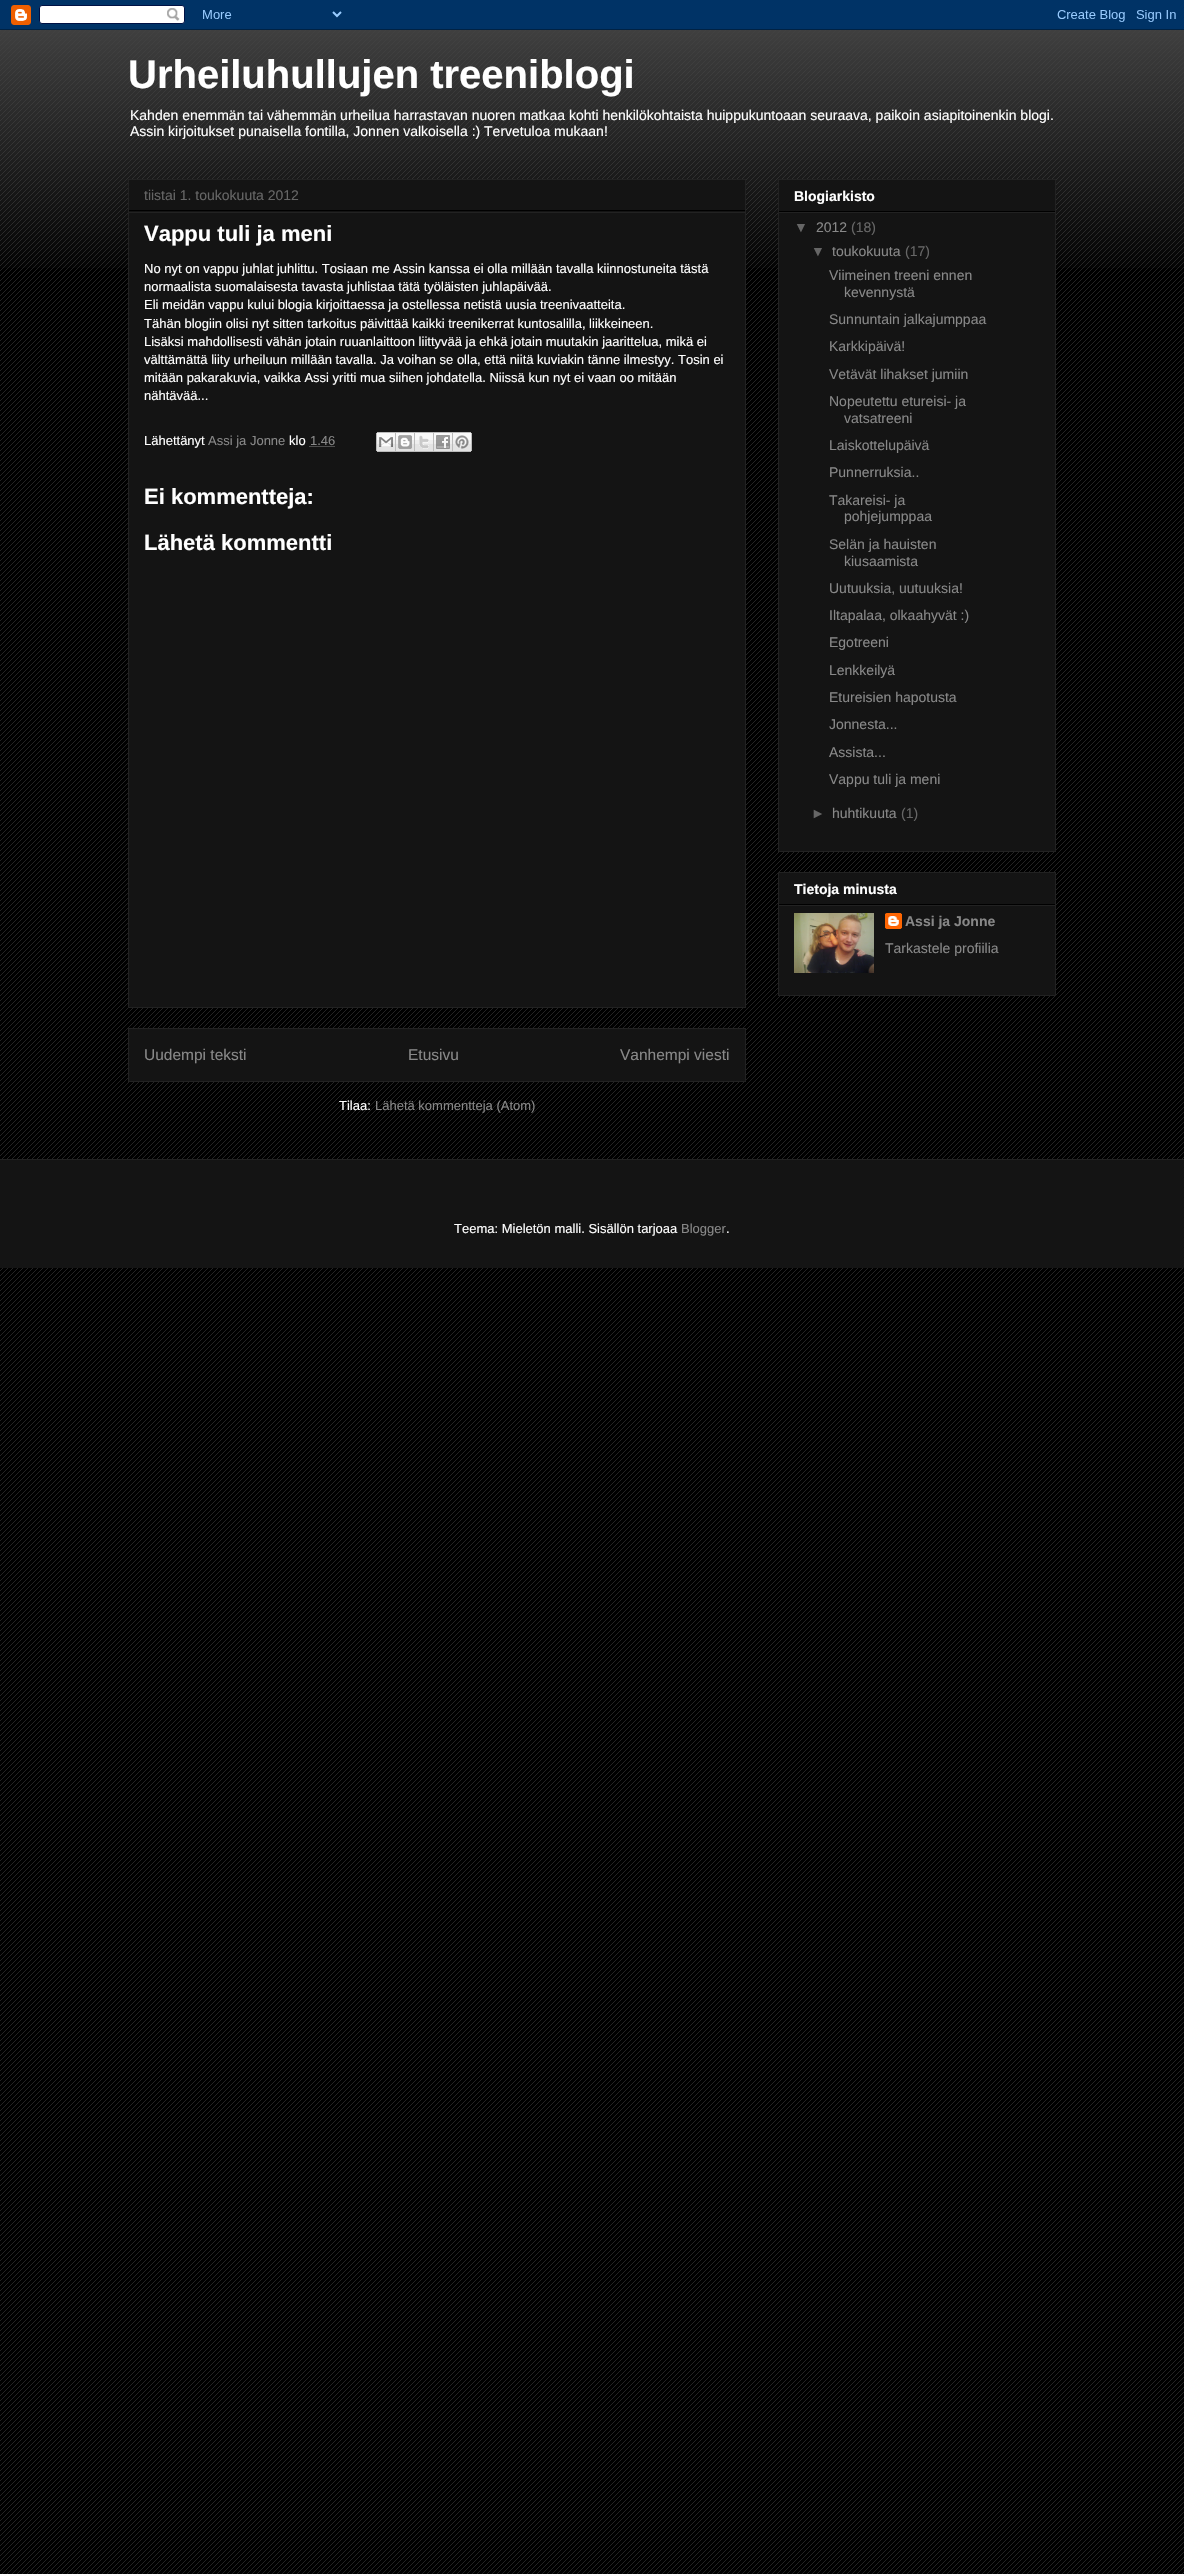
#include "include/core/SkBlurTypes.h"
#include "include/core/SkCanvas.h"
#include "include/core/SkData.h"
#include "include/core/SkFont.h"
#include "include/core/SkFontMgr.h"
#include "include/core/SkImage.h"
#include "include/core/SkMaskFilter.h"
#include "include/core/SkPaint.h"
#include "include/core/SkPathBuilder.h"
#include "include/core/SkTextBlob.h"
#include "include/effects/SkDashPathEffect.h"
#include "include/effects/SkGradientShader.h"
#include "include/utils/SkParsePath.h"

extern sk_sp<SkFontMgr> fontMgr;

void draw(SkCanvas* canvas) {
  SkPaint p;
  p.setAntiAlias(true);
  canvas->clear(SK_ColorBLACK);
  canvas->drawImageRect(SkImages::DeferredFromEncodedData(SkData::MakeFromFileName("images/1.png")), SkRect::MakeLTRB(0, 30, 1184, 2574), SkSamplingOptions());
  canvas->drawImageRect(SkImages::DeferredFromEncodedData(SkData::MakeFromFileName("images/2.png")), SkRect::MakeLTRB(0, 0, 1184, 30), SkSamplingOptions());
  canvas->drawImageRect(SkImages::DeferredFromEncodedData(SkData::MakeFromFileName("images/3.png")), SkRect::MakeLTRB(0, 30, 1184, 268), SkSamplingOptions());
  p.setColor(SkColorSetRGB(20, 20, 20));
  canvas->drawRect(SkRect::MakeLTRB(128.5f, 179.5f, 745.5f, 1007.5f), p);
  p.setStyle(SkPaint::kStroke_Style);
  p.setStrokeWidth(1);
  p.setColor(SkColorSetRGB(34, 34, 34));
  canvas->drawRect(SkRect::MakeLTRB(128.5f, 179.5f, 745.5f, 1007.5f), p);
  p.setStyle(SkPaint::kFill_Style);
  p.setColor(SK_ColorBLACK);
  canvas->drawRect(SkRect::MakeLTRB(129, 210, 745, 211), p);
  p.setColor(SkColorSetRGB(34, 34, 34));
  canvas->drawRect(SkRect::MakeLTRB(129, 212, 745, 213), p);
  p.setStyle(SkPaint::kStroke_Style);
  p.setColor(SkColorSetRGB(136, 136, 136));
  p.setPathEffect(SkDashPathEffect::Make({{1, 1}}, 0));
  canvas->drawPath(SkPathBuilder().moveTo(309.5f, 446.5f).lineTo(335, 446.5f).detach(), p);
  p.setPathEffect(nullptr);
  canvas->drawImageRect(SkImages::DeferredFromEncodedData(SkData::MakeFromFileName("images/4.png")), SkRect::MakeLTRB(376, 432, 396, 452), SkSamplingOptions());
  canvas->drawImageRect(SkImages::DeferredFromEncodedData(SkData::MakeFromFileName("images/5.png")), SkRect::MakeLTRB(396, 432, 415, 452), SkSamplingOptions());
  canvas->drawImageRect(SkImages::DeferredFromEncodedData(SkData::MakeFromFileName("images/6.png")), SkRect::MakeLTRB(415, 432, 434, 452), SkSamplingOptions());
  canvas->drawImageRect(SkImages::DeferredFromEncodedData(SkData::MakeFromFileName("images/7.png")), SkRect::MakeLTRB(434, 432, 453, 452), SkSamplingOptions());
  canvas->drawImageRect(SkImages::DeferredFromEncodedData(SkData::MakeFromFileName("images/8.png")), SkRect::MakeLTRB(453, 432, 472, 452), SkSamplingOptions());
  p.setStyle(SkPaint::kFill_Style);
  p.setColor(SkColorSetRGB(20, 20, 20));
  canvas->drawRect(SkRect::MakeLTRB(128.5f, 1028.5f, 745.5f, 1081.5f), p);
  p.setStyle(SkPaint::kStroke_Style);
  p.setColor(SkColorSetRGB(34, 34, 34));
  canvas->drawRect(SkRect::MakeLTRB(128.5f, 1028.5f, 745.5f, 1081.5f), p);
  p.setStyle(SkPaint::kFill_Style);
  p.setColor(SkColorSetRGB(20, 20, 20));
  canvas->drawRect(SkRect::MakeLTRB(778.5f, 179.5f, 1055.5f, 851.5f), p);
  p.setStyle(SkPaint::kStroke_Style);
  p.setColor(SkColorSetRGB(34, 34, 34));
  canvas->drawRect(SkRect::MakeLTRB(778.5f, 179.5f, 1055.5f, 851.5f), p);
  p.setStyle(SkPaint::kFill_Style);
  p.setColor(SK_ColorBLACK);
  canvas->drawRect(SkRect::MakeLTRB(779, 211, 1055, 212), p);
  p.setColor(SkColorSetRGB(34, 34, 34));
  canvas->drawRect(SkRect::MakeLTRB(779, 212, 1055, 213), p);
  p.setColor(SkColorSetRGB(20, 20, 20));
  canvas->drawRect(SkRect::MakeLTRB(778.5f, 872.5f, 1055.5f, 995.5f), p);
  p.setStyle(SkPaint::kStroke_Style);
  p.setColor(SkColorSetRGB(34, 34, 34));
  canvas->drawRect(SkRect::MakeLTRB(778.5f, 872.5f, 1055.5f, 995.5f), p);
  p.setStyle(SkPaint::kFill_Style);
  p.setColor(SK_ColorBLACK);
  canvas->drawRect(SkRect::MakeLTRB(779, 904, 1055, 905), p);
  p.setColor(SkColorSetRGB(34, 34, 34));
  canvas->drawRect(SkRect::MakeLTRB(779, 905, 1055, 906), p);
  canvas->drawImageRect(SkImages::DeferredFromEncodedData(SkData::MakeFromFileName("images/9.png")), SkRect::MakeLTRB(794, 913, 874, 973), SkSamplingOptions());
  canvas->drawImageRect(SkImages::DeferredFromEncodedData(SkData::MakeFromFileName("images/10.png")), SkRect::MakeLTRB(885, 913, 902, 929), SkSamplingOptions());
  p.setColor(SkColorSetRGB(20, 20, 20));
  canvas->drawRect(SkRect::MakeLTRB(0, 1160, 1184, 1268), p);
  p.setColor(SkColorSetRGB(34, 34, 34));
  canvas->drawRect(SkRect::MakeLTRB(0, 1159, 1184, 1160), p);
  SkFont font1(fontMgr->matchFamilyStyle("Liberation Sans", SkFontStyle::Bold()), 40);
  font1.setSubpixel(true);
  p.setColor(SK_ColorWHITE);
  canvas->drawString("Urheiluhullujen treeniblogi", 128, 88, font1, p);
  SkFont font2(fontMgr->matchFamilyStyle("Liberation Sans", SkFontStyle::Normal()), 14);
  font2.setSubpixel(true);
  canvas->drawString("Kahden enemmän tai vähemmän urheilua harrastavan nuoren matkaa kohti henkilökohtaista huippukuntoaan seuraava, paikoin asiapitoinenkin blogi.", 130, 120, font2, p);
  canvas->drawString("Assin kirjoitukset punaisella fontilla, Jonnen valkoisella :) Tervetuloa mukaan!", 130, 136, font2, p);
  p.setColor(SkColorSetRGB(102, 102, 102));
  canvas->drawString("tiistai 1. toukokuuta 2012", 144, 200, font2, p);
  SkFont font3(fontMgr->matchFamilyStyle("Liberation Sans", SkFontStyle::Bold()), 22);
  font3.setSubpixel(true);
  p.setColor(SK_ColorWHITE);
  canvas->drawString("Vappu tuli ja meni", 144, 241, font3, p);
  SkFont font4(fontMgr->matchFamilyStyle("Liberation Sans", SkFontStyle::Normal()), 13);
  font4.setSubpixel(true);
  canvas->drawString("No nyt on vappu juhlat juhlittu. Tosiaan me Assin kanssa ei olla millään tavalla kiinnostuneita tästä", 144, 273, font4, p);
  canvas->drawString("normaalista suomalaisesta tavasta juhlistaa tätä työläisten juhlapäivää.", 144, 291, font4, p);
  canvas->drawString("Eli meidän vappu kului blogia kirjoittaessa ja ostellessa netistä uusia treenivaatteita.", 144, 309, font4, p);
  canvas->drawString("Tähän blogiin olisi nyt sitten tarkoitus päivittää kaikki treenikerrat kuntosalilla, liikkeineen.", 144, 328, font4, p);
  canvas->drawString("Lisäksi mahdollisesti vähän jotain ruuanlaittoon liittyvää ja ehkä jotain muutakin jaarittelua, mikä ei", 144, 346, font4, p);
  canvas->drawString("välttämättä liity urheiluun millään tavalla. Ja voihan se olla, että niitä kuviakin tänne ilmestyy. Tosin ei", 144, 364, font4, p);
  canvas->drawString("mitään pakarakuvia, vaikka Assi yritti mua siihen johdatella. Niissä kun nyt ei vaan oo mitään", 144, 382, font4, p);
  canvas->drawString("nähtävää...", 144, 400, font4, p);
  canvas->drawString("Lähettänyt", 144, 445, font4, p);
  p.setColor(SkColorSetRGB(136, 136, 136));
  canvas->drawString("Assi ja Jonne", 208, 445, font4, p);
  p.setColor(SK_ColorWHITE);
  canvas->drawString("klo", 289, 445, font4, p);
  p.setColor(SkColorSetRGB(136, 136, 136));
  canvas->drawString("1.46", 310, 445, font4, p);
  p.setColor(SK_ColorWHITE);
  canvas->drawString("Ei kommentteja:", 144, 504, font3, p);
  canvas->drawString("Lähetä kommentti", 144, 550, font3, p);
  SkFont font5(fontMgr->matchFamilyStyle("Liberation Sans", SkFontStyle::Normal()), 15.5f);
  font5.setSubpixel(true);
  p.setColor(SkColorSetRGB(136, 136, 136));
  canvas->drawString("Uudempi teksti", 144, 1060, font5, p);
  canvas->drawString("Etusivu", 408, 1060, font5, p);
  canvas->drawString("Vanhempi viesti", 620, 1060, font5, p);
  p.setColor(SK_ColorWHITE);
  canvas->drawString("Tilaa:", 339, 1110, font4, p);
  p.setColor(SkColorSetRGB(136, 136, 136));
  canvas->drawString("Lähetä kommentteja (Atom)", 375, 1110, font4, p);
  SkFont font6(fontMgr->matchFamilyStyle("Liberation Sans", SkFontStyle::Bold()), 14);
  font6.setSubpixel(true);
  p.setColor(SK_ColorWHITE);
  canvas->drawString("Blogiarkisto", 794, 201, font6, p);
  p.setColor(SkColorSetRGB(102, 102, 102));
  canvas->drawString("▼", 794, 232, font2, p);
  p.setColor(SkColorSetRGB(136, 136, 136));
  canvas->drawString("2012", 816, 232, font2, p);
  p.setColor(SkColorSetRGB(102, 102, 102));
  canvas->drawString("(18)", 851, 232, font2, p);
  canvas->drawString("▼", 811, 256, font2, p);
  p.setColor(SkColorSetRGB(136, 136, 136));
  canvas->drawString("toukokuuta", 832, 256, font2, p);
  p.setColor(SkColorSetRGB(102, 102, 102));
  canvas->drawString("(17)", 905, 256, font2, p);
  p.setColor(SkColorSetRGB(136, 136, 136));
  canvas->drawString("Viimeinen treeni ennen", 829, 280, font2, p);
  canvas->drawString("kevennystä", 844, 297, font2, p);
  canvas->drawString("Sunnuntain jalkajumppaa", 829, 324, font2, p);
  canvas->drawString("Karkkipäivä!", 829, 351, font2, p);
  canvas->drawString("Vetävät lihakset jumiin", 829, 379, font2, p);
  canvas->drawString("Nopeutettu etureisi- ja", 829, 406, font2, p);
  canvas->drawString("vatsatreeni", 844, 423, font2, p);
  canvas->drawString("Laiskottelupäivä", 829, 450, font2, p);
  canvas->drawString("Punnerruksia..", 829, 477, font2, p);
  canvas->drawString("Takareisi- ja", 829, 505, font2, p);
  canvas->drawString("pohjejumppaa", 844, 521, font2, p);
  canvas->drawString("Selän ja hauisten", 829, 549, font2, p);
  canvas->drawString("kiusaamista", 844, 566, font2, p);
  canvas->drawString("Uutuuksia, uutuuksia!", 829, 593, font2, p);
  canvas->drawString("Iltapalaa, olkaahyvät :)", 829, 620, font2, p);
  canvas->drawString("Egotreeni", 829, 647, font2, p);
  canvas->drawString("Lenkkeilyä", 829, 675, font2, p);
  canvas->drawString("Etureisien hapotusta", 829, 702, font2, p);
  canvas->drawString("Jonnesta...", 829, 729, font2, p);
  canvas->drawString("Assista...", 829, 757, font2, p);
  canvas->drawString("Vappu tuli ja meni", 829, 784, font2, p);
  p.setColor(SkColorSetRGB(102, 102, 102));
  canvas->drawString("►", 811, 818, font2, p);
  p.setColor(SkColorSetRGB(136, 136, 136));
  canvas->drawString("huhtikuuta", 832, 818, font2, p);
  p.setColor(SkColorSetRGB(102, 102, 102));
  canvas->drawString("(1)", 901, 818, font2, p);
  p.setColor(SK_ColorWHITE);
  canvas->drawString("Tietoja minusta", 794, 894, font6, p);
  p.setColor(SkColorSetRGB(136, 136, 136));
  canvas->drawString("Assi ja Jonne", 905, 926, font6, p);
  canvas->drawString("Tarkastele profiilia", 885, 953, font2, p);
  p.setColor(SK_ColorWHITE);
  canvas->drawString("Teema: Mieletön malli. Sisällön tarjoaa", 454, 1233, font4, p);
  p.setColor(SkColorSetRGB(136, 136, 136));
  canvas->drawString("Blogger", 681, 1233, font4, p);
  p.setColor(SK_ColorWHITE);
  canvas->drawString(".", 726, 1233, font4, p);
}
